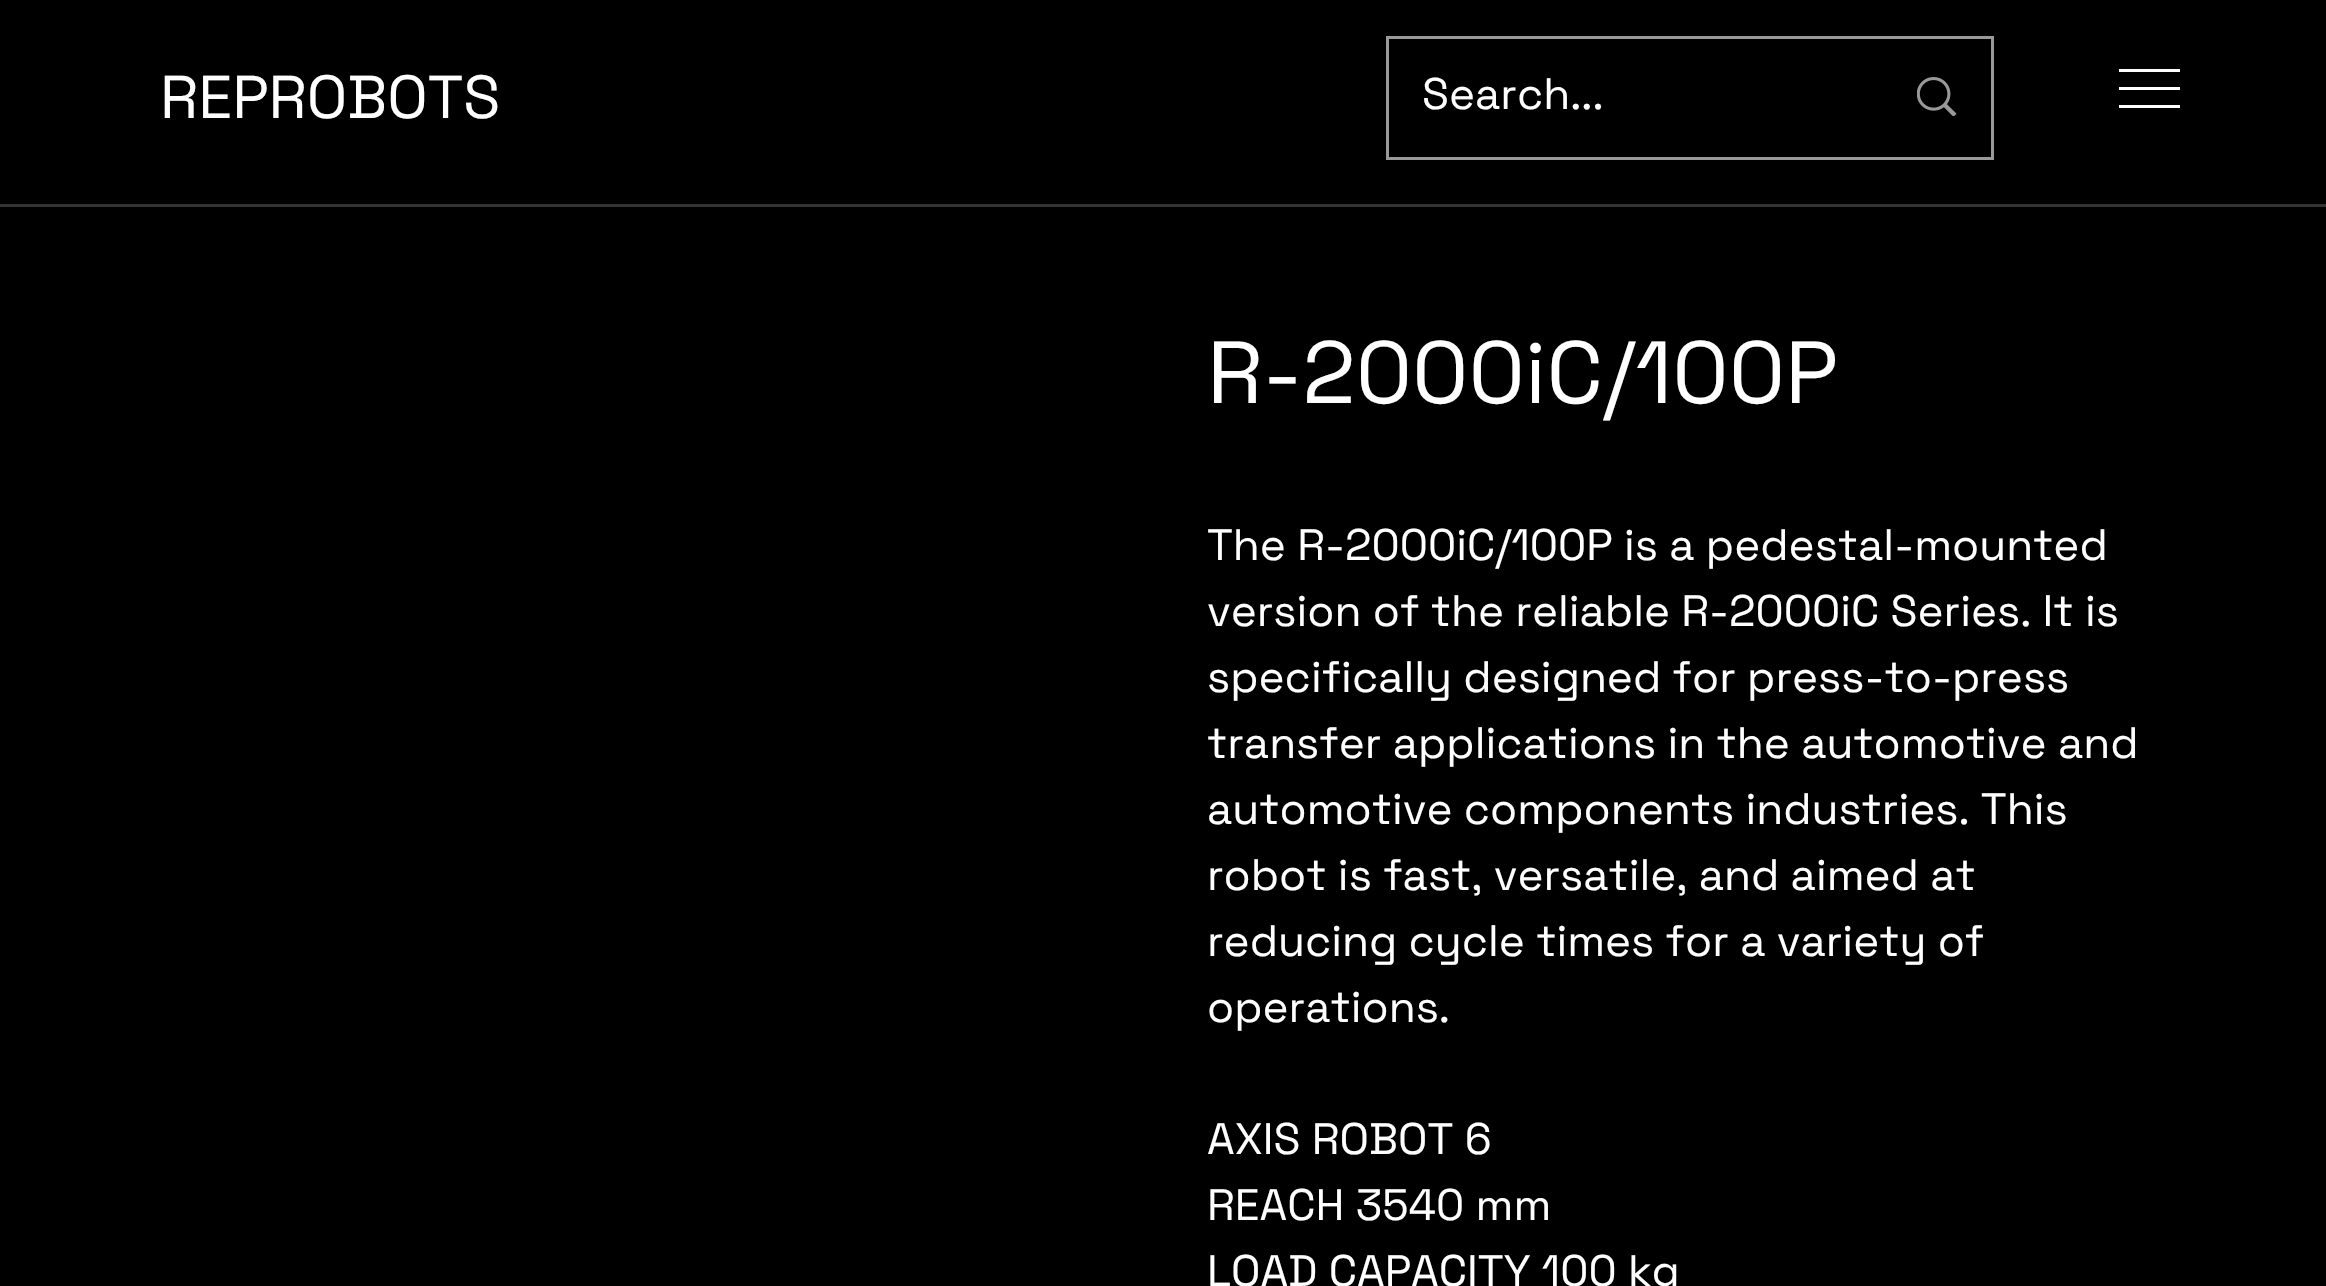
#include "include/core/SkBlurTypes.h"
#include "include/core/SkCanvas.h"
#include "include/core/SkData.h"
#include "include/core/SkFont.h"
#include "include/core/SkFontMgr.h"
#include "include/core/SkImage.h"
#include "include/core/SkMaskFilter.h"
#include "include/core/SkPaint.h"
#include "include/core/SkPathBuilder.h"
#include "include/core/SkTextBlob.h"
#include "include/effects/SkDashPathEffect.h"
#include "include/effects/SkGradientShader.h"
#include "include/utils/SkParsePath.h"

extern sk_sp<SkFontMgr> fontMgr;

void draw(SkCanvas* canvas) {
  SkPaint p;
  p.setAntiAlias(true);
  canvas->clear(SK_ColorBLACK);
  p.setStyle(SkPaint::kStroke_Style);
  p.setStrokeWidth(3);
  p.setColor(SkColorSetRGB(153, 153, 153));
  canvas->drawRect(SkRect::MakeLTRB(1387.5f, 37.5f, 1992.5f, 158.5f), p);
  canvas->drawImageRect(SkImages::DeferredFromEncodedData(SkData::MakeFromFileName("images/1.png")), SkRect::MakeLTRB(1917, 77, 1957, 116), SkSamplingOptions());
  p.setStyle(SkPaint::kFill_Style);
  p.setColor(SK_ColorWHITE);
  canvas->drawRect(SkRect::MakeLTRB(2119, 69, 2180, 72), p);
  canvas->drawRect(SkRect::MakeLTRB(2119, 87, 2180, 90), p);
  canvas->drawRect(SkRect::MakeLTRB(2119, 105, 2180, 108), p);
  p.setColor(SkColorSetRGB(51, 51, 51));
  canvas->drawRect(SkRect::MakeLTRB(0, 204, 2326, 207), p);
  SkFont font1(fontMgr->matchFamilyStyle("Space Grotesk", SkFontStyle::Normal()), 60.5f);
  font1.setSubpixel(true);
  p.setColor(SK_ColorWHITE);
  canvas->drawString("REPROBOTS", 160, 118, font1, p);
  SkFont font2(fontMgr->matchFamilyStyle("Space Grotesk", SkFontStyle::Normal()), 44);
  font2.setSubpixel(true);
  canvas->drawString("Search...", 1422, 109, font2, p);
  SkFont font3(fontMgr->matchFamilyStyle("Space Grotesk", SkFontStyle::Normal()), 88);
  font3.setSubpixel(true);
  canvas->drawString("R-2000iC/100P", 1207, 403, font3, p);
  canvas->drawString("The R-2000iC/100P is a pedestal-mounted", 1207, 560, font2, p);
  canvas->drawString("version of the reliable R-2000iC Series. It is", 1207, 626, font2, p);
  canvas->drawString("specifically designed for press-to-press", 1207, 692, font2, p);
  canvas->drawString("transfer applications in the automotive and", 1207, 758, font2, p);
  canvas->drawString("automotive components industries. This", 1207, 824, font2, p);
  canvas->drawString("robot is fast, versatile, and aimed at", 1207, 890, font2, p);
  canvas->drawString("reducing cycle times for a variety of", 1207, 956, font2, p);
  canvas->drawString("operations.", 1207, 1022, font2, p);
  canvas->drawString("AXIS ROBOT 6", 1207, 1154, font2, p);
  canvas->drawString("REACH 3540 mm", 1207, 1220, font2, p);
  canvas->drawString("LOAD CAPACITY 100 kg", 1207, 1286, font2, p);
}
